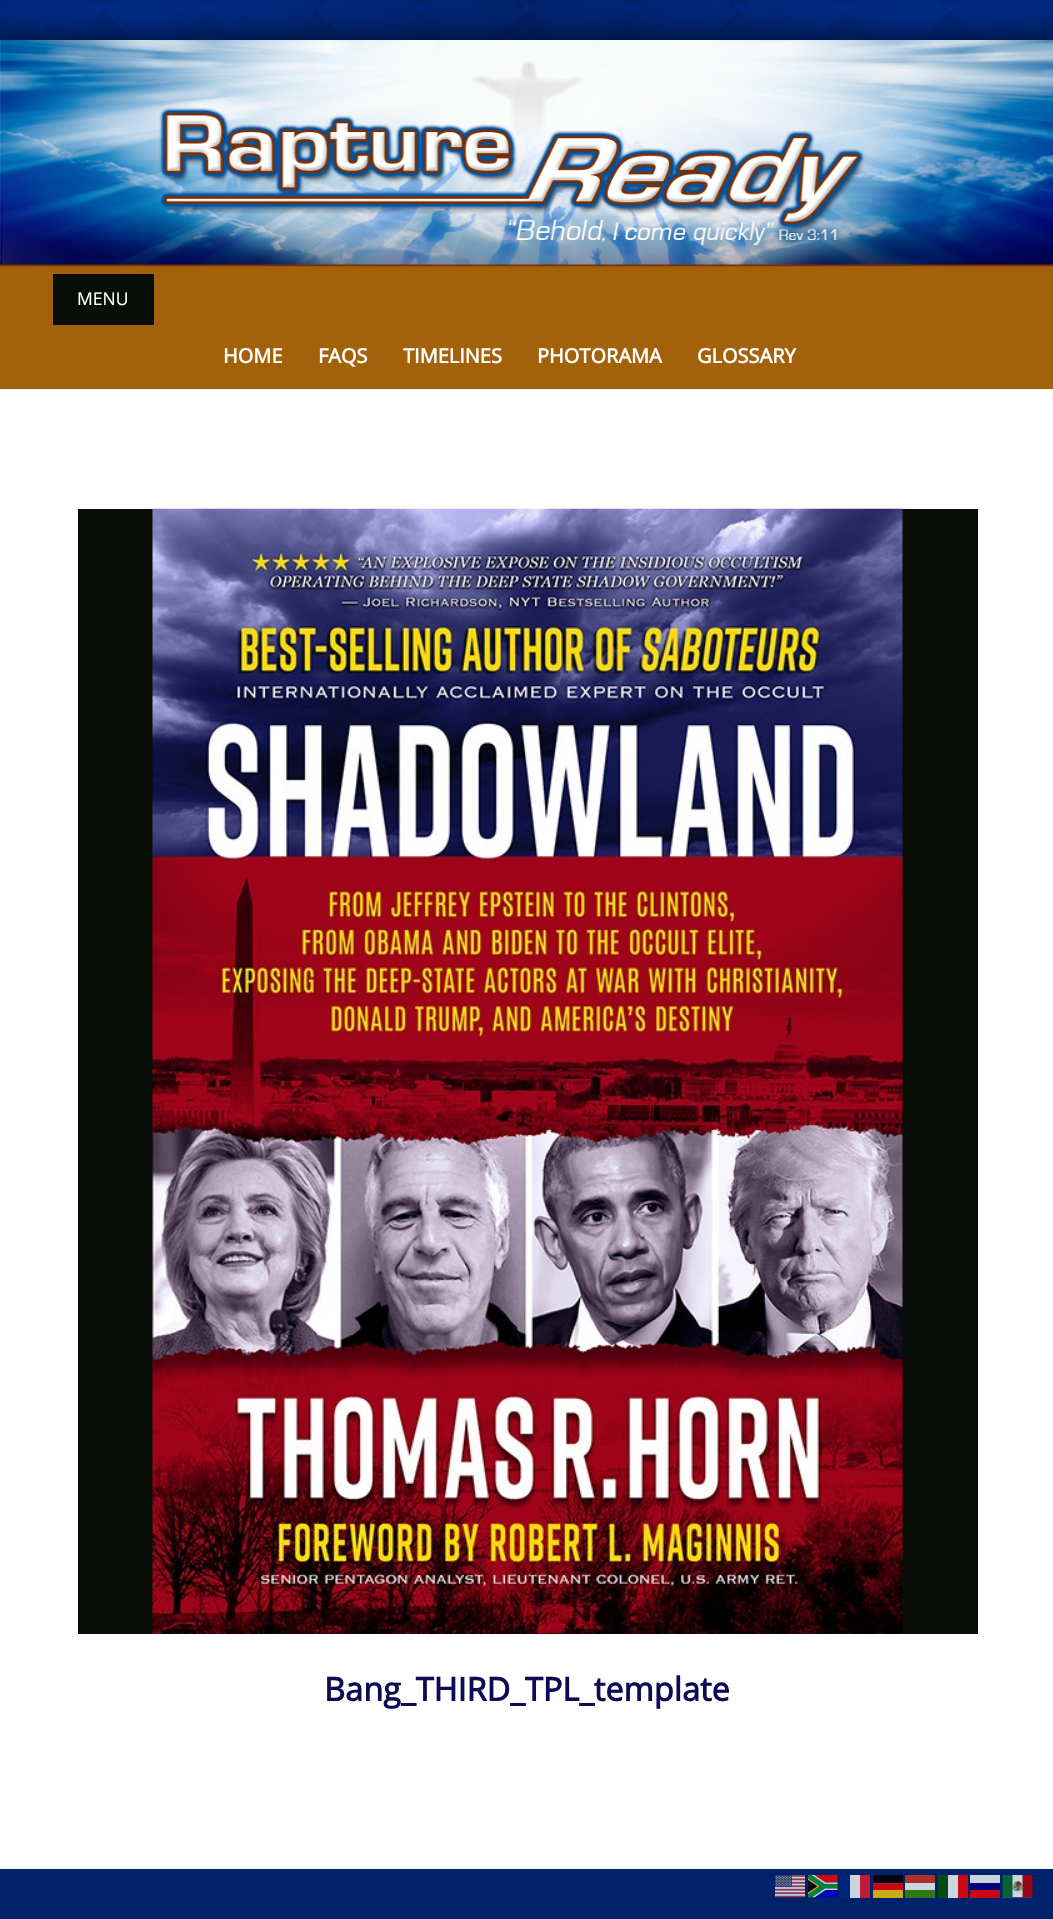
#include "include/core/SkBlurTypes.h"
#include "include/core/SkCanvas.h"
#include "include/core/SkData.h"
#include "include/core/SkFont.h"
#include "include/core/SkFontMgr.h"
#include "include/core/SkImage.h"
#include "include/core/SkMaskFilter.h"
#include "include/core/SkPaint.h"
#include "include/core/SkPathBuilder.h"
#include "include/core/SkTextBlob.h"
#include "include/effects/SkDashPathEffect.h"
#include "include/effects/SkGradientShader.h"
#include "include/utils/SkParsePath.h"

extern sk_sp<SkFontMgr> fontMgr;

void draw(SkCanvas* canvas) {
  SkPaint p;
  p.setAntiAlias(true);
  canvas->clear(SK_ColorWHITE);
  canvas->drawImageRect(SkImages::DeferredFromEncodedData(SkData::MakeFromFileName("images/1.png")), SkRect::MakeLTRB(0, 0, 1053, 40), SkSamplingOptions());
  p.setColor(SkColorSetARGB(128, 0, 0, 0));
  p.setMaskFilter(SkMaskFilter::MakeBlur(kNormal_SkBlurStyle, 12.5f));
  canvas->drawRect(SkRect::MakeLTRB(-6, 34, 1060, 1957), p);
  p.setMaskFilter(nullptr);
  p.setColor(SkColorSetRGB(163, 98, 10));
  canvas->drawRect(SkRect::MakeLTRB(0, 266, 1053, 389), p);
  canvas->drawImageRect(SkImages::DeferredFromEncodedData(SkData::MakeFromFileName("images/2.png")), SkRect::MakeLTRB(0, 40, 1053, 267), SkSamplingOptions());
  p.setColor(SkColorSetRGB(8, 13, 7));
  canvas->drawRect(SkRect::MakeLTRB(53, 274, 154, 325), p);
  p.setColor(SK_ColorWHITE);
  canvas->drawRect(SkRect::MakeLTRB(0, 389, 1053, 1869), p);
  p.setColor(SkColorSetRGB(8, 13, 7));
  canvas->drawRect(SkRect::MakeLTRB(78, 509, 978, 1634), p);
  canvas->drawImageRect(SkImages::DeferredFromEncodedData(SkData::MakeFromFileName("images/3.png")), SkRect::MakeLTRB(152, 508, 903, 1634), SkSamplingOptions());
  p.setColor(SkColorSetRGB(0, 33, 107));
  canvas->drawRect(SkRect::MakeLTRB(0, 1869, 1053, 1919), p);
  canvas->drawImageRect(SkImages::DeferredFromEncodedData(SkData::MakeFromFileName("images/4.png")), SkRect::MakeLTRB(775, 1875, 805, 1898), SkSamplingOptions());
  canvas->drawImageRect(SkImages::DeferredFromEncodedData(SkData::MakeFromFileName("images/5.png")), SkRect::MakeLTRB(808, 1875, 838, 1898), SkSamplingOptions());
  p.setColor(SkColorSetRGB(0, 37, 123));
  canvas->drawRect(SkRect::MakeLTRB(840, 1875, 850, 1898), p);
  p.setColor(SkColorSetRGB(204, 211, 225));
  canvas->drawRect(SkRect::MakeLTRB(850, 1875, 860, 1898), p);
  p.setColor(SkColorSetRGB(194, 26, 60));
  canvas->drawRect(SkRect::MakeLTRB(860, 1875, 870, 1898), p);
  p.setColor(SkColorSetRGB(0, 7, 21));
  canvas->drawRect(SkRect::MakeLTRB(873, 1875, 903, 1883), p);
  p.setColor(SkColorSetRGB(170, 49, 39));
  canvas->drawRect(SkRect::MakeLTRB(905, 1875, 935, 1883), p);
  p.setColor(SkColorSetRGB(0, 76, 21));
  canvas->drawRect(SkRect::MakeLTRB(938, 1875, 948, 1898), p);
  p.setColor(SkColorSetRGB(204, 211, 225));
  canvas->drawRect(SkRect::MakeLTRB(948, 1875, 958, 1898), p);
  p.setColor(SkColorSetRGB(202, 7, 21));
  canvas->drawRect(SkRect::MakeLTRB(958, 1875, 968, 1898), p);
  p.setColor(SkColorSetRGB(204, 211, 225));
  canvas->drawRect(SkRect::MakeLTRB(970, 1875, 1000, 1883), p);
  canvas->drawImageRect(SkImages::DeferredFromEncodedData(SkData::MakeFromFileName("images/6.png")), SkRect::MakeLTRB(1002, 1875, 1033, 1898), SkSamplingOptions());
  p.setColor(SkColorSetRGB(204, 7, 21));
  canvas->drawRect(SkRect::MakeLTRB(873, 1883, 903, 1890), p);
  p.setColor(SkColorSetRGB(204, 211, 225));
  canvas->drawRect(SkRect::MakeLTRB(905, 1883, 935, 1890), p);
  p.setColor(SkColorSetRGB(1, 7, 122));
  canvas->drawRect(SkRect::MakeLTRB(970, 1883, 1000, 1890), p);
  p.setColor(SkColorSetRGB(204, 170, 21));
  canvas->drawRect(SkRect::MakeLTRB(873, 1890, 903, 1898), p);
  p.setColor(SkColorSetRGB(45, 119, 21));
  canvas->drawRect(SkRect::MakeLTRB(905, 1890, 935, 1898), p);
  p.setColor(SkColorSetRGB(203, 7, 22));
  canvas->drawRect(SkRect::MakeLTRB(970, 1890, 1000, 1898), p);
  SkFont font1(fontMgr->matchFamilyStyle("Open Sans", SkFontStyle::Normal()), 17.5f);
  font1.setSubpixel(true);
  p.setColor(SK_ColorWHITE);
  canvas->drawString("MENU", 77, 305, font1, p);
  SkFont font2(fontMgr->matchFamilyStyle("Open Sans", SkFontStyle::Bold()), 20);
  font2.setSubpixel(true);
  canvas->drawString("HOME", 223, 363, font2, p);
  canvas->drawString("FAQS", 318, 363, font2, p);
  canvas->drawString("TIMELINES", 403, 363, font2, p);
  canvas->drawString("PHOTORAMA", 537, 363, font2, p);
  canvas->drawString("GLOSSARY", 697, 363, font2, p);
  SkFont font3(fontMgr->matchFamilyStyle("Open Sans", SkFontStyle::Bold()), 32.5f);
  font3.setSubpixel(true);
  p.setColor(SkColorSetRGB(16, 9, 84));
  canvas->drawString("Bang_THIRD_TPL_template", 324, 1701, font3, p);
}
